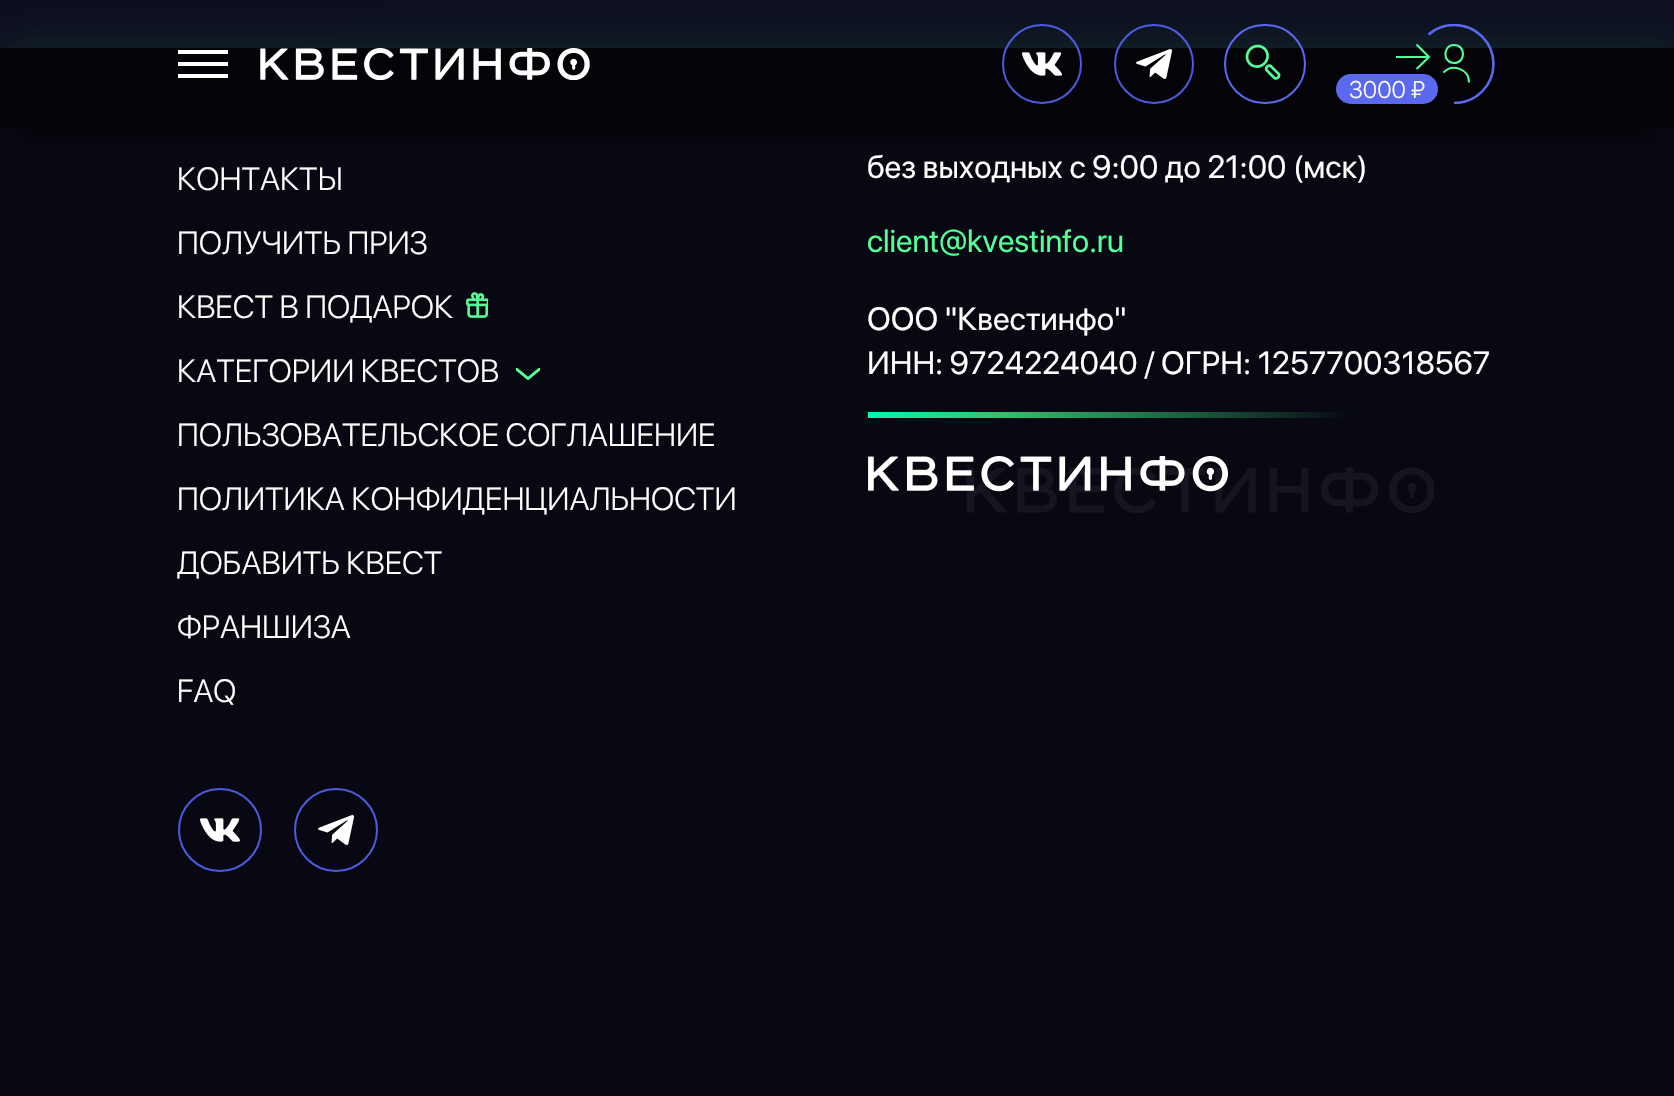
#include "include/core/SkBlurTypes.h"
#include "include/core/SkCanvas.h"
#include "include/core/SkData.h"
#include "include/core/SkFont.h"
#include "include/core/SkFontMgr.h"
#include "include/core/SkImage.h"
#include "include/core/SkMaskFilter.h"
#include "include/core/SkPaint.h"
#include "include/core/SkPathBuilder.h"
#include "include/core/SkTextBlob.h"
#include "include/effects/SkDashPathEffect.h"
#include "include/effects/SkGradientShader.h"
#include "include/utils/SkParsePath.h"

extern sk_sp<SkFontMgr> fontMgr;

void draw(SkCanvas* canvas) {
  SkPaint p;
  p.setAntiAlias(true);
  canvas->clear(SK_ColorWHITE);
  {
    const SkColor colors[] = {SkColorSetRGB(1, 1, 1), SkColorSetRGB(10, 12, 25), SkColorSetRGB(12, 15, 32), SkColorSetRGB(12, 15, 32)};
    const float stops[] = {0.15f, 0.35f, 0.9f, 1};
    const SkPoint ends[] = {{-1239, -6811}, {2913, 381}};
    p.setShader(SkGradientShader::MakeLinear(ends, colors, stops, 4, SkTileMode::kClamp));
    p.setAlpha(255);
  }
  canvas->drawRect(SkRect::MakeLTRB(0, 0, 1674, 48), p);
  p.setShader(nullptr);
  p.setColor(SkColorSetARGB(77, 35, 105, 63));
  p.setMaskFilter(SkMaskFilter::MakeBlur(kNormal_SkBlurStyle, 20));
  canvas->drawRect(SkRect::MakeLTRB(0, 48, 1674, 1096), p);
  p.setMaskFilter(nullptr);
  p.setColor(SkColorSetRGB(8, 8, 18));
  canvas->drawRect(SkRect::MakeLTRB(0, 128, 1674, 1096), p);
  p.setColor(SkColorSetRGB(4, 4, 8));
  canvas->drawRect(SkRect::MakeLTRB(0, 48, 1674, 128), p);
  canvas->save();
  canvas->clipRect(SkRect::MakeLTRB(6, 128, 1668, 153));
  p.setColor(SkColorSetARGB(179, 0, 0, 0));
  p.setMaskFilter(SkMaskFilter::MakeBlur(kNormal_SkBlurStyle, 9));
  canvas->drawRect(SkRect::MakeLTRB(22, 52, 1652, 136), p);
  p.setMaskFilter(nullptr);
  canvas->restore();
  p.setColor(SK_ColorWHITE);
  canvas->drawRect(SkRect::MakeLTRB(178, 50, 228, 54), p);
  canvas->drawRect(SkRect::MakeLTRB(178, 62, 228, 66), p);
  canvas->drawRect(SkRect::MakeLTRB(178, 74, 228, 78), p);
  canvas->drawImageRect(SkImages::DeferredFromEncodedData(SkData::MakeFromFileName("images/1.png")), SkRect::MakeLTRB(260, 48, 590, 80), SkSamplingOptions());
  canvas->drawImageRect(SkImages::DeferredFromEncodedData(SkData::MakeFromFileName("images/2.png")), SkRect::MakeLTRB(1022, 52, 1062, 76), SkSamplingOptions());
  p.setStyle(SkPaint::kStroke_Style);
  p.setStrokeWidth(2);
  p.setColor(SkColorSetRGB(75, 90, 224));
  canvas->drawCircle(1042, 64, 39, p);
  canvas->drawImageRect(SkImages::DeferredFromEncodedData(SkData::MakeFromFileName("images/3.png")), SkRect::MakeLTRB(1136, 49, 1172, 79), SkSamplingOptions());
  canvas->drawCircle(1154, 64, 39, p);
  p.setColor(SkColorSetRGB(90, 105, 239));
  canvas->drawRoundRect(SkRect::MakeLTRB(1225, 25, 1305, 103), 39, 39, p);
  canvas->drawImageRect(SkImages::DeferredFromEncodedData(SkData::MakeFromFileName("images/4.png")), SkRect::MakeLTRB(1245, 44, 1281, 80), SkSamplingOptions());
  p.setStrokeWidth(2.1f);
  p.setColor(SkColorSetRGB(83, 255, 152));
  canvas->drawPath(SkPathBuilder().moveTo(1443.5f, 72.5f).cubicTo(1452.5f, 63, 1469, 69, 1469, 82.5f).moveTo(1454, 63).cubicTo(1466, 63, 1466, 45, 1454, 45).cubicTo(1442.5f, 45, 1442.5f, 63, 1454, 63).close().detach(), p);
  canvas->save();
  canvas->clipRect(SkRect::MakeLTRB(1396, 24, 1496, 104));
  p.setStrokeWidth(2.5f);
  p.setColor(SkColorSetRGB(90, 105, 239));
  canvas->drawPath(SkPathBuilder().moveTo(1428.5f, 34.5f).cubicTo(1435.5f, 28.5f, 1444.5f, 25, 1454, 25).cubicTo(1476, 25, 1493.5f, 42.5f, 1493.5f, 64).cubicTo(1493.5f, 85.5f, 1476, 103, 1454, 103).detach(), p);
  canvas->restore();
  p.setStrokeWidth(2.1f);
  p.setColor(SkColorSetRGB(83, 255, 152));
  canvas->drawPath(SkPathBuilder().moveTo(1416.5f, 44.5f).lineTo(1429, 57).lineTo(1416.5f, 69).detach(), p);
  p.setStyle(SkPaint::kFill_Style);
  canvas->drawRect(SkRect::MakeLTRB(1396, 56, 1429, 58), p);
  p.setColor(SkColorSetRGB(90, 105, 239));
  canvas->drawRoundRect(SkRect::MakeLTRB(1336, 74, 1438, 104), 15, 15, p);
  canvas->drawImageRect(SkImages::DeferredFromEncodedData(SkData::MakeFromFileName("images/5.png")), SkRect::MakeLTRB(466, 292, 488, 318), SkSamplingOptions());
  canvas->save();
  canvas->clipRect(SkRect::MakeLTRB(516, 368, 540, 380));
  p.setStyle(SkPaint::kStroke_Style);
  p.setStrokeWidth(2.9f);
  p.setStrokeCap(SkPaint::kRound_Cap);
  p.setColor(SkColorSetRGB(83, 255, 152));
  canvas->drawPath(SkPathBuilder().moveTo(539.5f, 369).lineTo(528, 378.5f).lineTo(516.5f, 369).detach(), p);
  canvas->restore();
  canvas->drawImageRect(SkImages::DeferredFromEncodedData(SkData::MakeFromFileName("images/6.png")), SkRect::MakeLTRB(200, 818, 240, 842), SkSamplingOptions());
  p.setStrokeWidth(2);
  p.setStrokeCap(SkPaint::kButt_Cap);
  p.setColor(SkColorSetRGB(75, 90, 224));
  canvas->drawCircle(220, 830, 41, p);
  canvas->drawImageRect(SkImages::DeferredFromEncodedData(SkData::MakeFromFileName("images/7.png")), SkRect::MakeLTRB(318, 815, 354, 845), SkSamplingOptions());
  canvas->drawCircle(336, 830, 41, p);
  p.setStyle(SkPaint::kFill_Style);
  {
    const SkColor colors[] = {SkColorSetRGB(8, 8, 18), SkColorSetRGB(53, 193, 112), SkColorSetRGB(0, 255, 181)};
    const float stops[] = {0, 0.7f, 1};
    const SkPoint ends[] = {{1350, 415}, {848, 415}};
    p.setShader(SkGradientShader::MakeLinear(ends, colors, stops, 3, SkTileMode::kClamp));
    p.setAlpha(255);
  }
  canvas->drawRect(SkRect::MakeLTRB(868, 412, 1350, 418), p);
  canvas->drawImageRect(SkImages::DeferredFromEncodedData(SkData::MakeFromFileName("images/8.png")), SkRect::MakeLTRB(868, 456, 1434, 513), SkSamplingOptions());
  SkFont font1(fontMgr->matchFamilyStyle("SF Pro Display", SkFontStyle(300, SkFontStyle::kNormal_Width, SkFontStyle::kUpright_Slant)), 24);
  font1.setSubpixel(true);
  p.setShader(nullptr);
  p.setColor(SK_ColorWHITE);
  canvas->drawString("3000 ₽", 1349, 98, font1, p);
  SkFont font2(fontMgr->matchFamilyStyle("SF Pro Display", SkFontStyle(300, SkFontStyle::kNormal_Width, SkFontStyle::kUpright_Slant)), 32);
  font2.setSubpixel(true);
  canvas->drawString("КОНТАКТЫ", 177, 190, font2, p);
  canvas->drawString("ПОЛУЧИТЬ ПРИЗ", 177, 254, font2, p);
  canvas->drawString("КВЕСТ В ПОДАРОК", 177, 318, font2, p);
  canvas->drawString("КАТЕГОРИИ КВЕСТОВ", 177, 382, font2, p);
  canvas->drawString("ПОЛЬЗОВАТЕЛЬСКОЕ СОГЛАШЕНИЕ", 177, 446, font2, p);
  canvas->drawString("ПОЛИТИКА КОНФИДЕНЦИАЛЬНОСТИ", 177, 510, font2, p);
  canvas->drawString("ДОБАВИТЬ КВЕСТ", 177, 574, font2, p);
  canvas->drawString("ФРАНШИЗА", 177, 638, font2, p);
  canvas->drawString("FAQ", 177, 702, font2, p);
  SkFont font3(fontMgr->matchFamilyStyle("SF Pro Display", SkFontStyle::Normal()), 32);
  font3.setSubpixel(true);
  canvas->drawString("без выходных с 9:00 до 21:00 (мск)", 867, 178, font3, p);
  p.setColor(SkColorSetRGB(83, 255, 152));
  canvas->drawString("client@kvestinfo.ru", 867, 252, font3, p);
  p.setColor(SK_ColorWHITE);
  canvas->drawString("ООО \"Квестинфо\"", 867, 330, font3, p);
  canvas->drawString("ИНН: 9724224040 / ОГРН: 1257700318567", 867, 374, font3, p);
}
